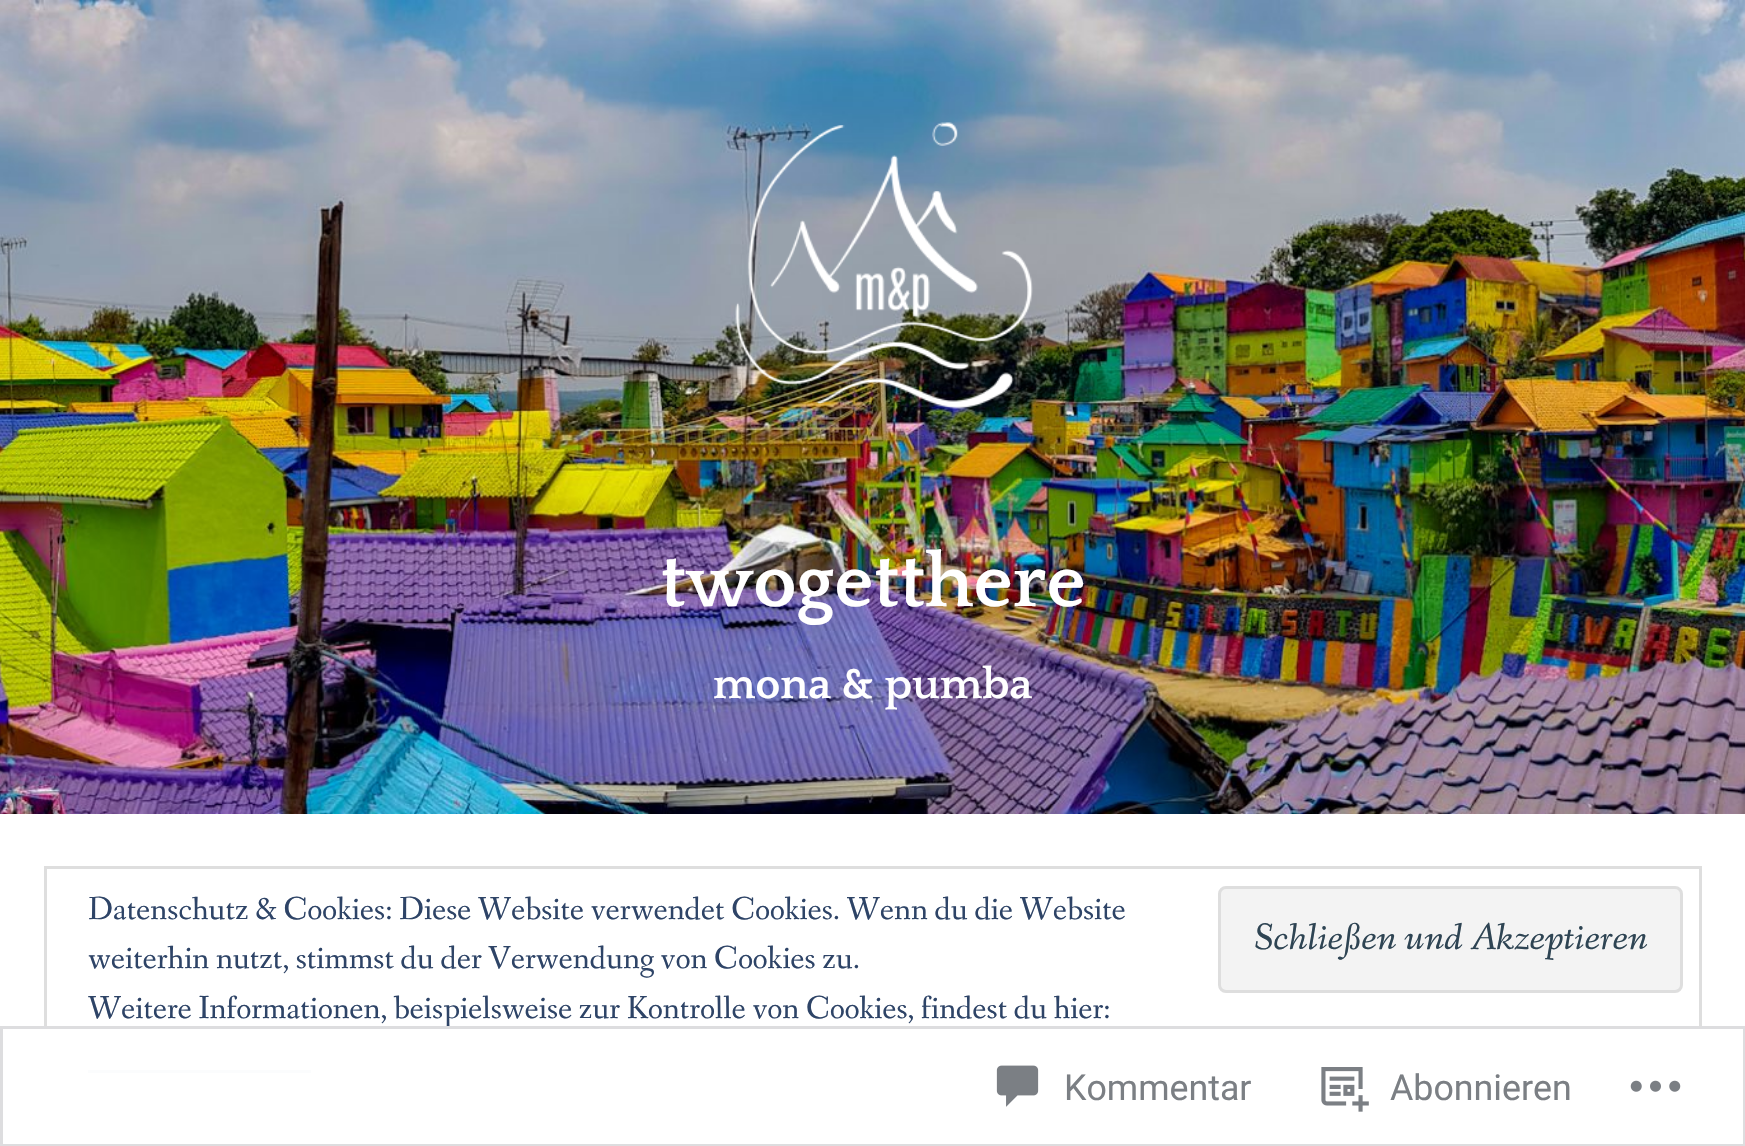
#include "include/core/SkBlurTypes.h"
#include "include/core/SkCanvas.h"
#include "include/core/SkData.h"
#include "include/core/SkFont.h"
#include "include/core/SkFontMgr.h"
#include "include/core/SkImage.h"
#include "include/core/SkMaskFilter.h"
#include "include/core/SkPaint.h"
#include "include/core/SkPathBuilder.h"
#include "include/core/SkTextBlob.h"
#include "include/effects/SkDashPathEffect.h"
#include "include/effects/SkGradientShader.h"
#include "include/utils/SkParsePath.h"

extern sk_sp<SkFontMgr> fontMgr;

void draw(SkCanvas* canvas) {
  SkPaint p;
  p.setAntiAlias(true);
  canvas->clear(SK_ColorWHITE);
  canvas->drawImageRect(SkImages::DeferredFromEncodedData(SkData::MakeFromFileName("images/1.png")), SkRect::MakeLTRB(0, 0, 1745, 814), SkSamplingOptions());
  canvas->drawImageRect(SkImages::DeferredFromEncodedData(SkData::MakeFromFileName("images/2.png")), SkRect::MakeLTRB(735, 122, 1033, 409), SkSamplingOptions());
  p.setStyle(SkPaint::kStroke_Style);
  p.setStrokeWidth(3);
  p.setColor(SkColorSetRGB(222, 222, 222));
  canvas->drawRect(SkRect::MakeLTRB(45.5f, 867.5f, 1700.5f, 1101.5f), p);
  p.setStyle(SkPaint::kFill_Style);
  p.setColor(SkColorSetRGB(243, 243, 243));
  canvas->drawRoundRect(SkRect::MakeLTRB(1219.5f, 887.5f, 1681.5f, 991.5f), 6.5f, 6.5f, p);
  p.setStyle(SkPaint::kStroke_Style);
  p.setColor(SkColorSetRGB(222, 222, 222));
  canvas->drawRoundRect(SkRect::MakeLTRB(1219.5f, 887.5f, 1681.5f, 991.5f), 6.5f, 6.5f, p);
  p.setStyle(SkPaint::kFill_Style);
  p.setColor(SkColorSetRGB(46, 68, 103));
  canvas->drawRect(SkRect::MakeLTRB(88, 1070, 311, 1073), p);
  SkFont font1(fontMgr->matchFamilyStyle("Quattrocento", SkFontStyle::Bold()), 77);
  font1.setSubpixel(true);
  p.setColor(SK_ColorWHITE);
  canvas->drawString("twogetthere", 660, 606, font1, p);
  SkFont font2(fontMgr->matchFamilyStyle("Quattrocento", SkFontStyle::Bold()), 44);
  font2.setSubpixel(true);
  canvas->drawString("mona & pumba", 713, 698, font2, p);
  SkFont font3(fontMgr->matchFamilyStyle("Fanwood Text", SkFontStyle::Normal()), 33);
  font3.setSubpixel(true);
  p.setColor(SkColorSetRGB(46, 68, 103));
  canvas->drawString("Datenschutz & Cookies: Diese Website verwendet Cookies. Wenn du die Website", 88, 919, font3, p);
  canvas->drawString("weiterhin nutzt, stimmst du der Verwendung von Cookies zu.", 88, 968, font3, p);
  SkFont font4(fontMgr->matchFamilyStyle("Fanwood Text", SkFontStyle::Italic()), 38.5f);
  font4.setSubpixel(true);
  p.setColor(SkColorSetRGB(46, 68, 83));
  canvas->drawString("Schließen und Akzeptieren", 1254, 949, font4, p);
  p.setColor(SkColorSetRGB(46, 68, 103));
  canvas->drawString("Weitere Informationen, beispielsweise zur Kontrolle von Cookies, findest du hier:", 88, 1018, font3, p);
  p.setColor(SkColorSetARGB(250, 255, 255, 255));
  canvas->drawRect(SkRect::MakeLTRB(44, 1026, 1702, 1103), p);
  p.setStyle(SkPaint::kStroke_Style);
  p.setColor(SkColorSetARGB(250, 220, 220, 222));
  canvas->drawRect(SkRect::MakeLTRB(1.5f, 1027.5f, 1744.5f, 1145.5f), p);
  canvas->drawImageRect(SkImages::DeferredFromEncodedData(SkData::MakeFromFileName("images/3.png")), SkRect::MakeLTRB(996, 1065, 1039, 1107), SkSamplingOptions());
  SkFont font5(fontMgr->matchFamilyStyle("Roboto", SkFontStyle::Normal()), 35.75f);
  font5.setSubpixel(true);
  p.setStyle(SkPaint::kFill_Style);
  p.setColor(SkColorSetRGB(123, 127, 132));
  canvas->drawString("Kommentar", 1064, 1100, font5, p);
  canvas->drawImageRect(SkImages::DeferredFromEncodedData(SkData::MakeFromFileName("images/4.png")), SkRect::MakeLTRB(1321, 1067, 1369, 1112), SkSamplingOptions());
  canvas->drawString("Abonnieren", 1390, 1100, font5, p);
  canvas->drawImageRect(SkImages::DeferredFromEncodedData(SkData::MakeFromFileName("images/5.png")), SkRect::MakeLTRB(1630, 1080, 1681, 1092), SkSamplingOptions());
}
